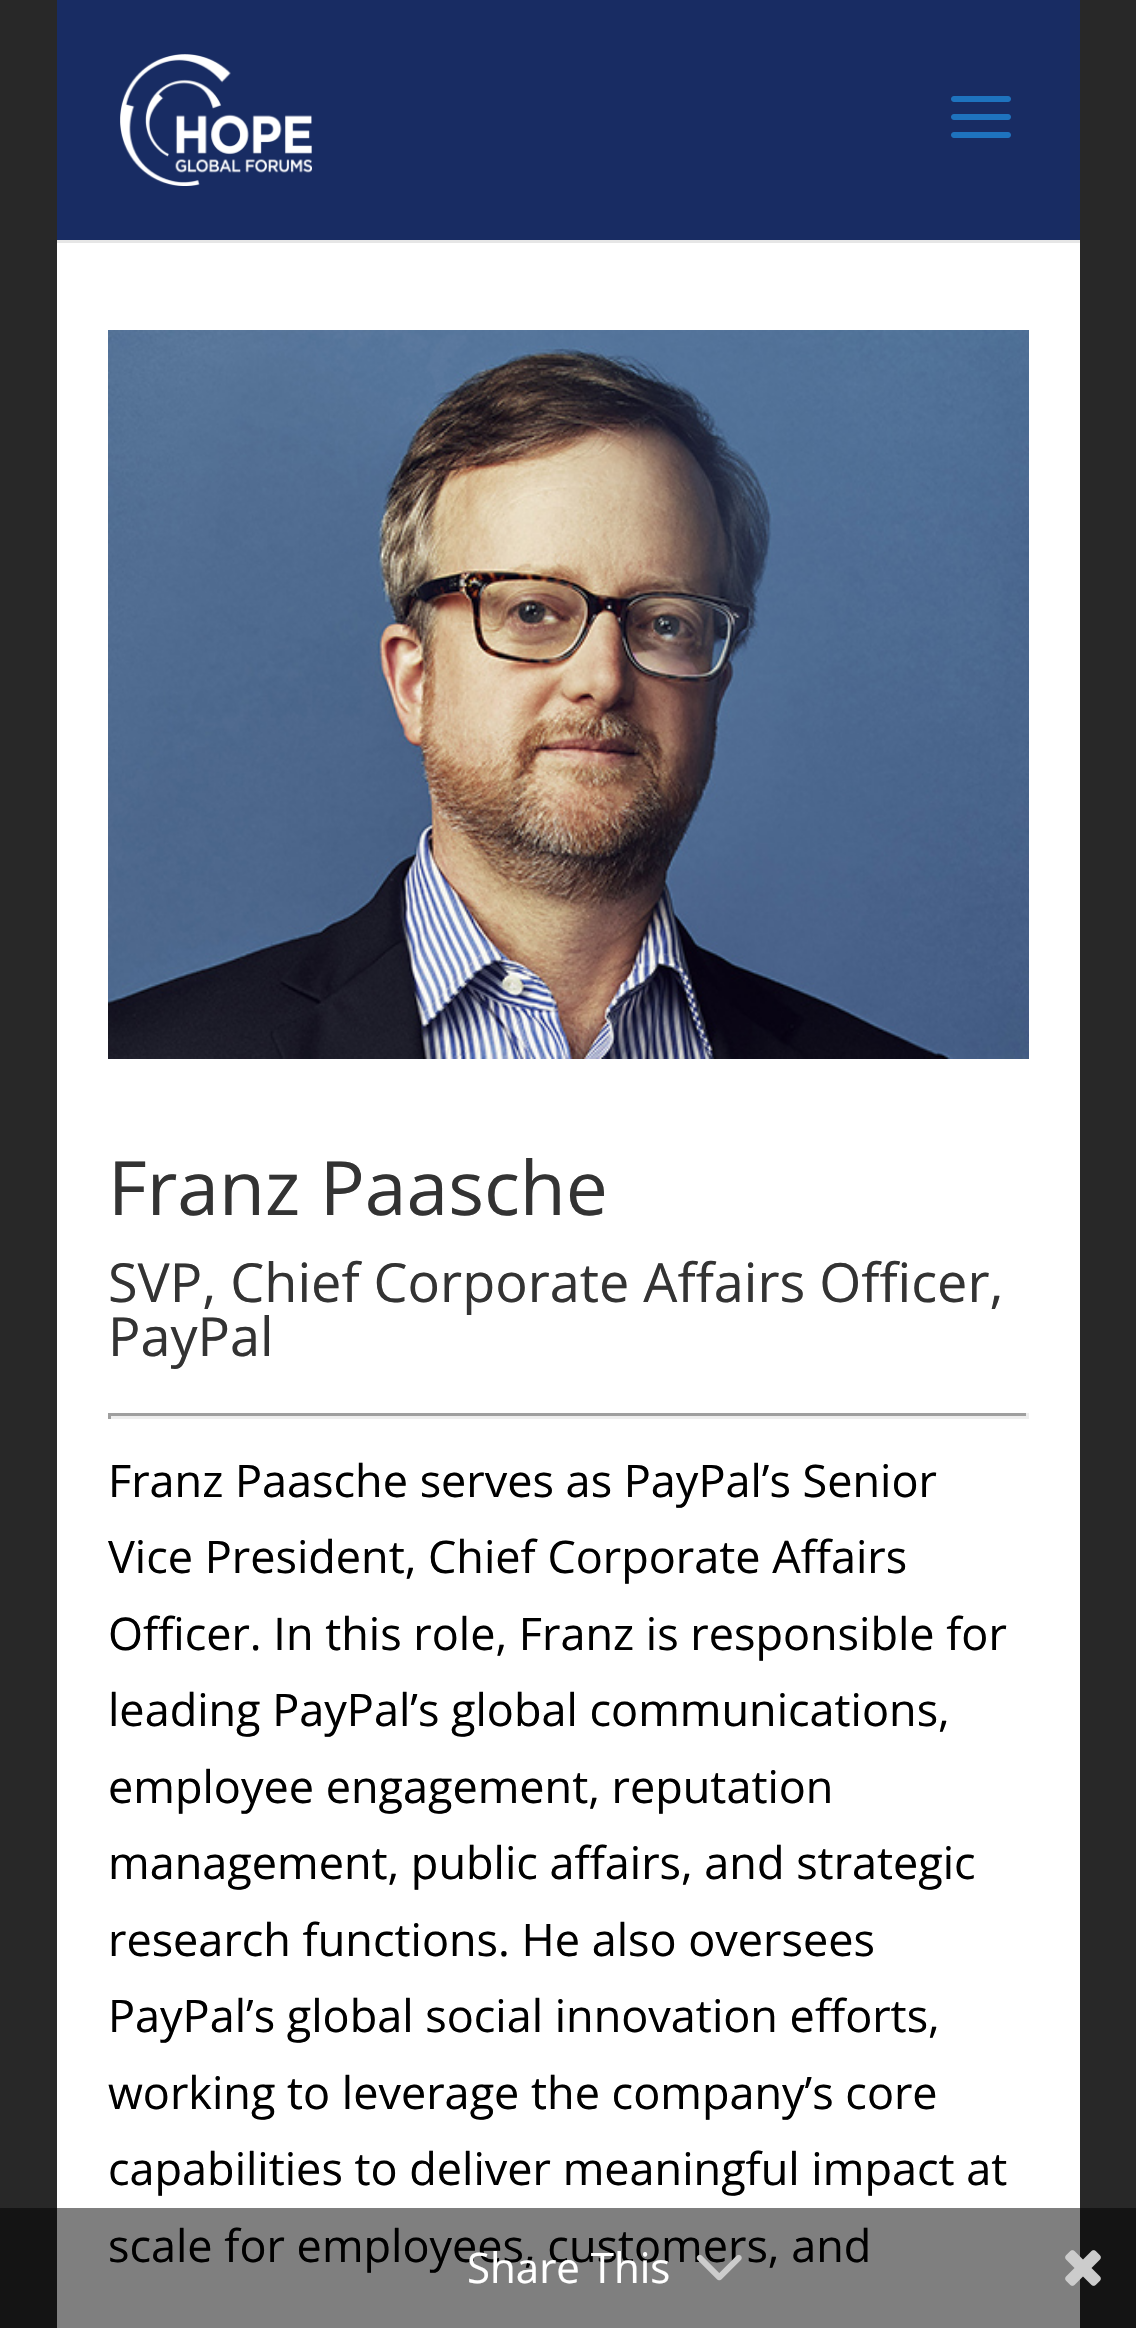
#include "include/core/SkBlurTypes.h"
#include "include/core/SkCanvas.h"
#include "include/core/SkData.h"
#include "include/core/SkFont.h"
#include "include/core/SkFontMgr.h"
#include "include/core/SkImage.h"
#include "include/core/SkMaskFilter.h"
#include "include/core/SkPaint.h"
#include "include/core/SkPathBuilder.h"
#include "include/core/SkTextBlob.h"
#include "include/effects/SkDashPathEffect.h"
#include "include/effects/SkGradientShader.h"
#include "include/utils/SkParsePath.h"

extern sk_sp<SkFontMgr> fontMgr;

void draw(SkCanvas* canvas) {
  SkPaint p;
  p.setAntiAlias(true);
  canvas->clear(SkColorSetRGB(40, 40, 40));
  p.setColor(SkColorSetRGB(230, 230, 230));
  canvas->drawRect(SkRect::MakeLTRB(57, 240, 1080, 243), p);
  p.setColor(SkColorSetRGB(24, 44, 99));
  canvas->drawRect(SkRect::MakeLTRB(57, 0, 1080, 240), p);
  canvas->drawImageRect(SkImages::DeferredFromEncodedData(SkData::MakeFromFileName("images/1.png")), SkRect::MakeLTRB(120, 54, 312, 186), SkSamplingOptions());
  canvas->drawImageRect(SkImages::DeferredFromEncodedData(SkData::MakeFromFileName("images/2.png")), SkRect::MakeLTRB(951, 96, 1011, 138), SkSamplingOptions());
  p.setColor(SK_ColorWHITE);
  canvas->drawRect(SkRect::MakeLTRB(57, 243, 1080, 2328), p);
  canvas->drawImageRect(SkImages::DeferredFromEncodedData(SkData::MakeFromFileName("images/3.png")), SkRect::MakeLTRB(108, 330, 1029, 1059), SkSamplingOptions());
  p.setColor(SkColorSetRGB(159, 159, 159));
  canvas->drawRect(SkRect::MakeLTRB(108, 1413, 1029, 1416), p);
  p.setColor(SkColorSetRGB(238, 238, 238));
  canvas->drawRect(SkRect::MakeLTRB(1026, 1413, 1029, 1419), p);
  canvas->drawRect(SkRect::MakeLTRB(108, 1416, 1029, 1419), p);
  p.setColor(SkColorSetRGB(159, 159, 159));
  canvas->drawRect(SkRect::MakeLTRB(108, 1413, 111, 1419), p);
  SkFont font1(fontMgr->matchFamilyStyle("Open Sans", SkFontStyle::Normal()), 75);
  font1.setSubpixel(true);
  p.setColor(SkColorSetRGB(51, 51, 51));
  canvas->drawString("Franz Paasche", 108, 1215, font1, p);
  SkFont font2(fontMgr->matchFamilyStyle("Open Sans", SkFontStyle::Normal()), 54);
  font2.setSubpixel(true);
  canvas->drawString("SVP, Chief Corporate Affairs Officer,", 108, 1302, font2, p);
  canvas->drawString("PayPal", 108, 1356, font2, p);
  SkFont font3(fontMgr->matchFamilyStyle("Open Sans", SkFontStyle::Normal()), 45);
  font3.setSubpixel(true);
  p.setColor(SK_ColorBLACK);
  canvas->drawString("Franz Paasche serves as PayPal’s Senior", 108, 1497, font3, p);
  canvas->drawString("Vice President, Chief Corporate Affairs", 108, 1573, font3, p);
  canvas->drawString("Officer. In this role, Franz is responsible for", 108, 1650, font3, p);
  canvas->drawString("leading PayPal’s global communications,", 108, 1726, font3, p);
  canvas->drawString("employee engagement, reputation", 108, 1803, font3, p);
  canvas->drawString("management, public affairs, and strategic", 108, 1879, font3, p);
  canvas->drawString("research functions. He also oversees", 108, 1956, font3, p);
  canvas->drawString("PayPal’s global social innovation efforts,", 108, 2032, font3, p);
  canvas->drawString("working to leverage the company’s core", 108, 2109, font3, p);
  canvas->drawString("capabilities to deliver meaningful impact at", 108, 2185, font3, p);
  canvas->drawString("scale for employees, customers, and", 108, 2262, font3, p);
  p.setColor(SkColorSetARGB(128, 0, 0, 0));
  canvas->drawRect(SkRect::MakeLTRB(0, 2208, 1136, 2328), p);
  SkFont font4(fontMgr->matchFamilyStyle("Open Sans", SkFontStyle::Normal()), 42);
  font4.setSubpixel(true);
  p.setColor(SK_ColorWHITE);
  canvas->drawString("Share This", 467, 2283, font4, p);
  canvas->drawImageRect(SkImages::DeferredFromEncodedData(SkData::MakeFromFileName("images/4.png")), SkRect::MakeLTRB(696, 2254, 742, 2281), SkSamplingOptions());
  canvas->drawImageRect(SkImages::DeferredFromEncodedData(SkData::MakeFromFileName("images/5.png")), SkRect::MakeLTRB(1065, 2250, 1101, 2286), SkSamplingOptions());
}
